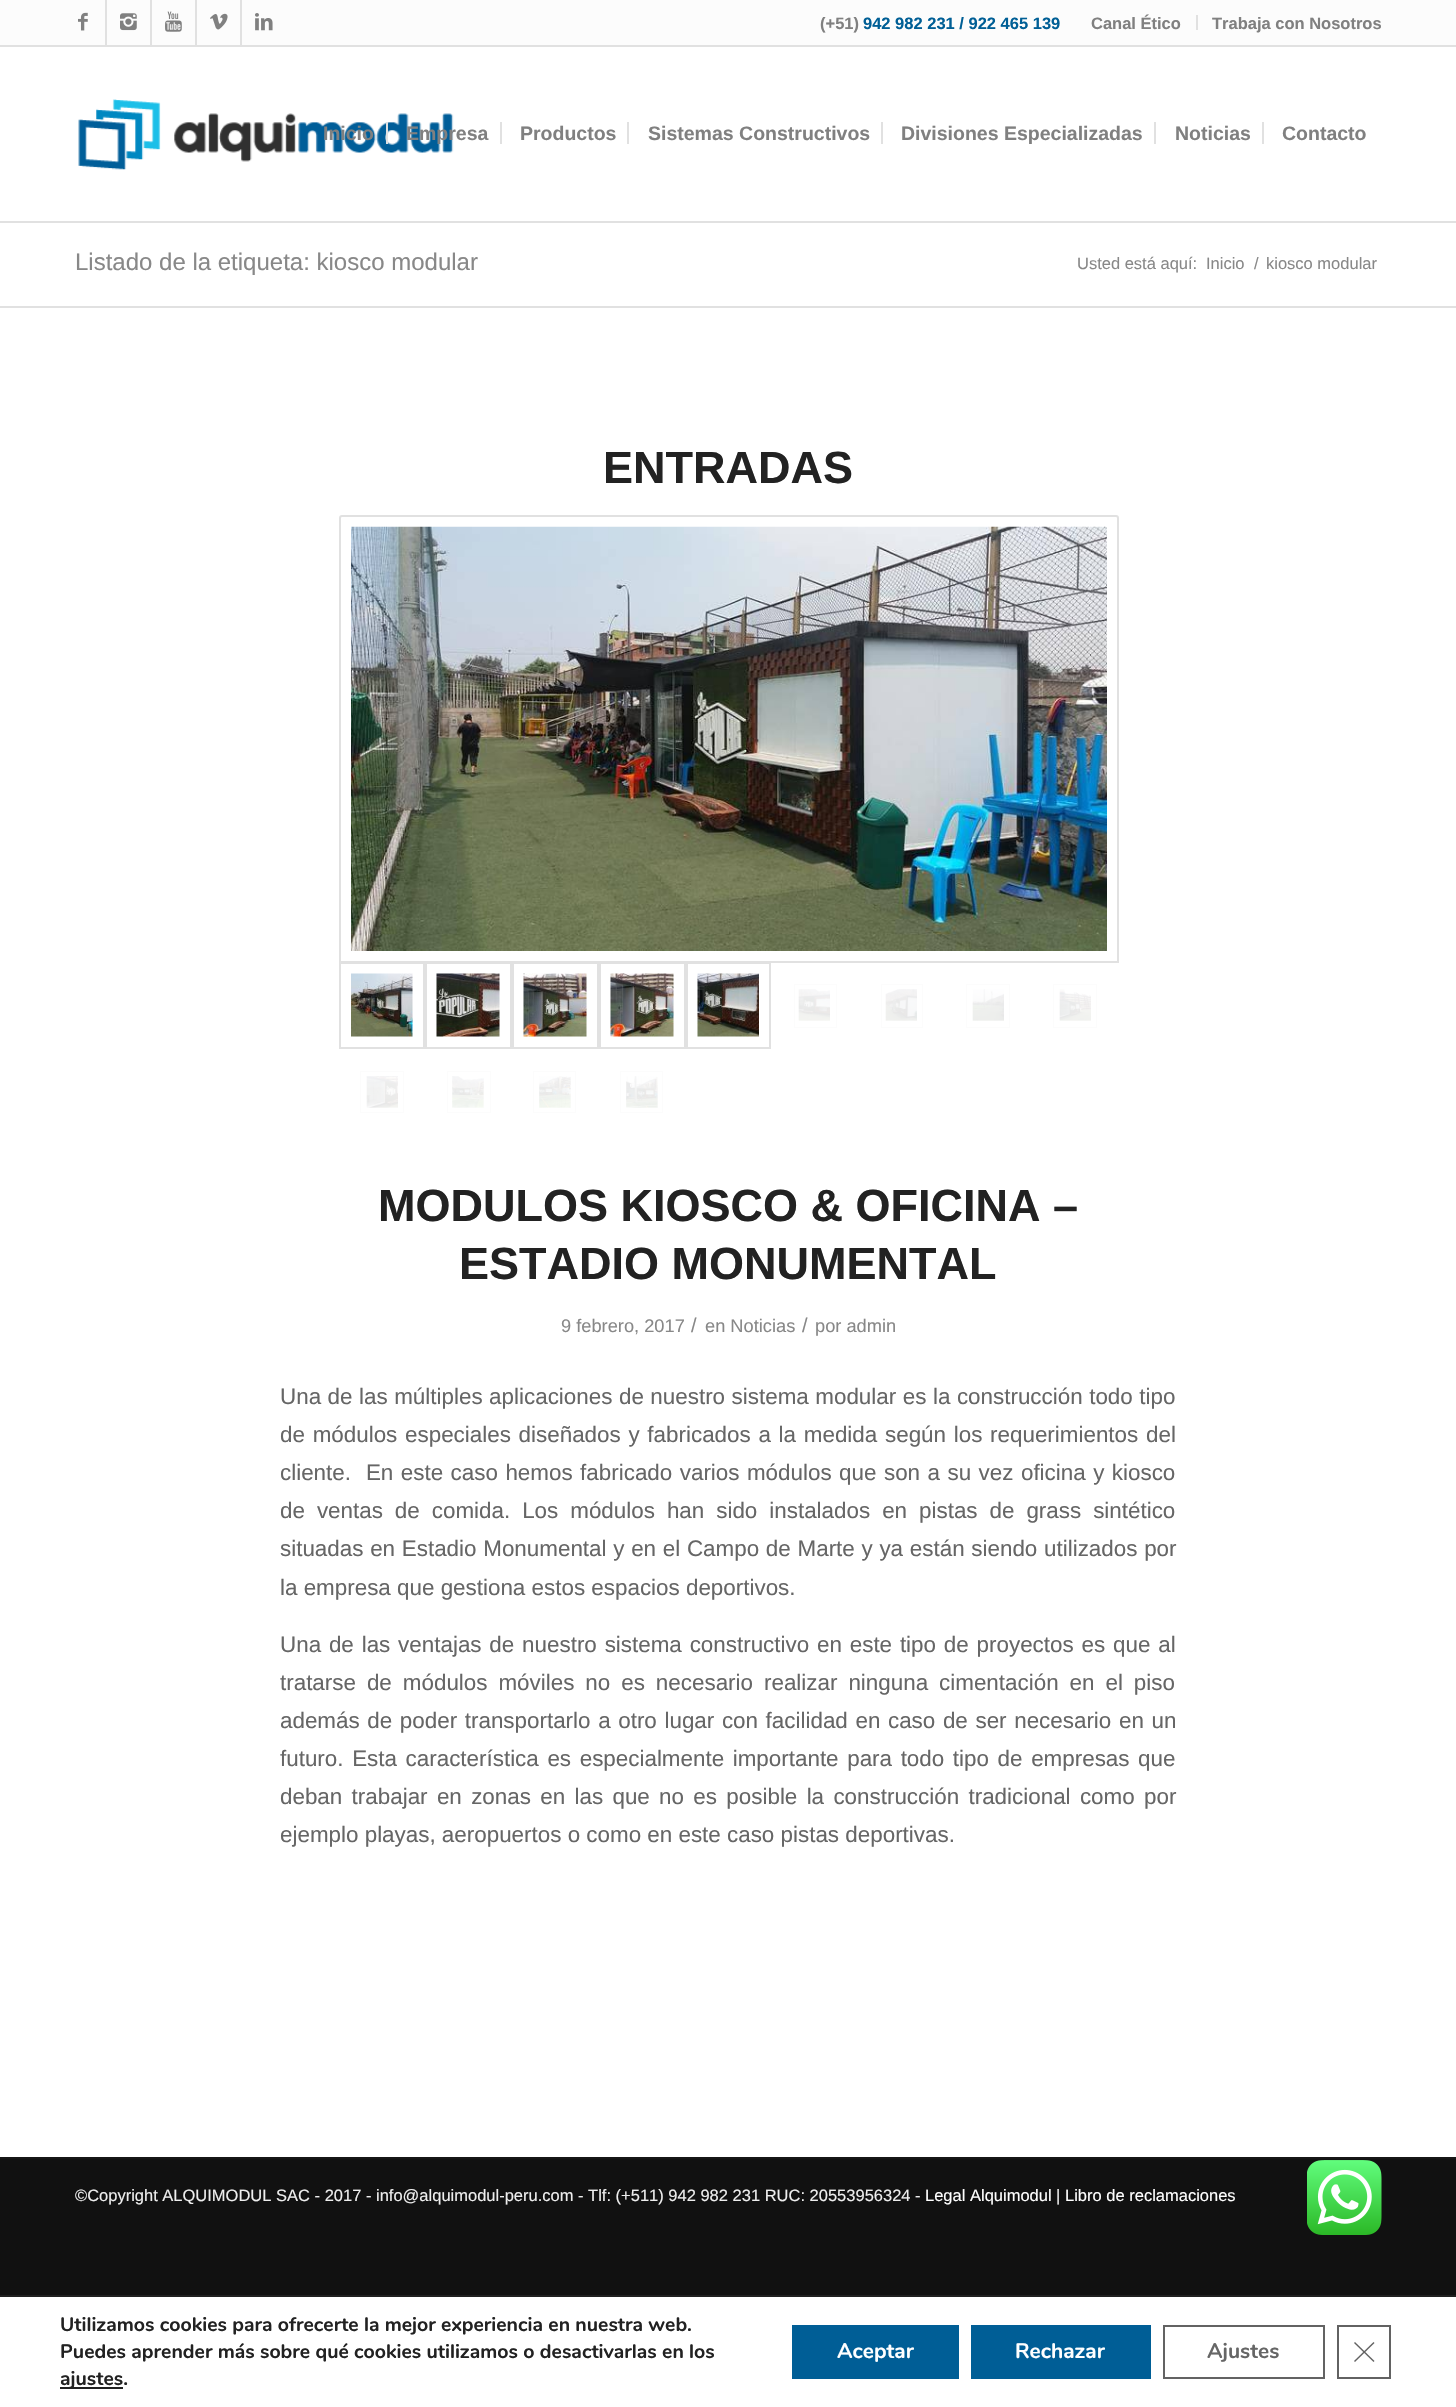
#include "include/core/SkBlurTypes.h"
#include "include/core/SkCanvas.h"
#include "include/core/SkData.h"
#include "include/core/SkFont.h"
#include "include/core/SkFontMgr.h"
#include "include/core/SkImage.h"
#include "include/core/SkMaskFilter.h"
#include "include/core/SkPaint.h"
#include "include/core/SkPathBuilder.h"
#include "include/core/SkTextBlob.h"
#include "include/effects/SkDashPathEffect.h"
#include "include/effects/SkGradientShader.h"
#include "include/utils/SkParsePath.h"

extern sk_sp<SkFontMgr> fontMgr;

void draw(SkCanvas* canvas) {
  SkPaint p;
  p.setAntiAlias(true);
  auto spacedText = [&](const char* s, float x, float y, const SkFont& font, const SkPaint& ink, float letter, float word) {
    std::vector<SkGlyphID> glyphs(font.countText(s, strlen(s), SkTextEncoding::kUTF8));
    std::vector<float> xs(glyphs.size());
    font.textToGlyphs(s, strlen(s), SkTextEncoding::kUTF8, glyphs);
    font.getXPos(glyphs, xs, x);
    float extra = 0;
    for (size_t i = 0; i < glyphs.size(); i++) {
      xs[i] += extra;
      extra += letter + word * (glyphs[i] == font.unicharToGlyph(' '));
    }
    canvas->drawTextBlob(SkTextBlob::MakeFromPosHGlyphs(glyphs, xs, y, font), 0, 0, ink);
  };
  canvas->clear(SkColorSetRGB(17, 17, 17));
  p.setColor(SK_ColorWHITE);
  canvas->drawRect(SkRect::MakeLTRB(0, 47, 1456, 2157), p);
  p.setColor(SkColorSetRGB(252, 252, 252));
  canvas->drawRect(SkRect::MakeLTRB(0, 0, 1456, 45), p);
  p.setColor(SkColorSetRGB(225, 225, 225));
  canvas->drawRect(SkRect::MakeLTRB(0, 45, 1456, 47), p);
  canvas->drawRect(SkRect::MakeLTRB(105, 0, 107, 45), p);
  canvas->drawImageRect(SkImages::DeferredFromEncodedData(SkData::MakeFromFileName("images/1.png")), SkRect::MakeLTRB(78, 12, 88, 31), SkSamplingOptions());
  canvas->drawRect(SkRect::MakeLTRB(150, 0, 152, 45), p);
  canvas->drawImageRect(SkImages::DeferredFromEncodedData(SkData::MakeFromFileName("images/2.png")), SkRect::MakeLTRB(120, 13, 137, 31), SkSamplingOptions());
  canvas->drawRect(SkRect::MakeLTRB(195, 0, 197, 45), p);
  canvas->drawImageRect(SkImages::DeferredFromEncodedData(SkData::MakeFromFileName("images/3.png")), SkRect::MakeLTRB(165, 11, 182, 32), SkSamplingOptions());
  canvas->drawRect(SkRect::MakeLTRB(240, 0, 242, 45), p);
  canvas->drawImageRect(SkImages::DeferredFromEncodedData(SkData::MakeFromFileName("images/4.png")), SkRect::MakeLTRB(210, 13, 228, 30), SkSamplingOptions());
  canvas->drawImageRect(SkImages::DeferredFromEncodedData(SkData::MakeFromFileName("images/5.png")), SkRect::MakeLTRB(255, 13, 273, 31), SkSamplingOptions());
  canvas->drawRect(SkRect::MakeLTRB(1196, 15, 1198, 30), p);
  canvas->drawRect(SkRect::MakeLTRB(0, 221, 1456, 223), p);
  canvas->drawImageRect(SkImages::DeferredFromEncodedData(SkData::MakeFromFileName("images/6.png")), SkRect::MakeLTRB(78, 99, 454, 170), SkSamplingOptions());
  canvas->drawRect(SkRect::MakeLTRB(386, 122, 388, 144), p);
  canvas->drawRect(SkRect::MakeLTRB(500, 122, 502, 144), p);
  canvas->drawRect(SkRect::MakeLTRB(627, 122, 629, 144), p);
  canvas->drawRect(SkRect::MakeLTRB(881, 122, 883, 144), p);
  canvas->drawRect(SkRect::MakeLTRB(1154, 122, 1156, 144), p);
  canvas->drawRect(SkRect::MakeLTRB(1262, 122, 1264, 144), p);
  canvas->drawRect(SkRect::MakeLTRB(0, 306, 1456, 308), p);
  p.setStyle(SkPaint::kStroke_Style);
  p.setStrokeWidth(2);
  canvas->drawPath(SkPathBuilder().moveTo(342, 516).lineTo(1116, 516).cubicTo(1117, 516, 1118, 517, 1118, 518).lineTo(1118, 962).lineTo(340, 962).lineTo(340, 518).cubicTo(340, 517, 341, 516, 342, 516).close().detach(), p);
  canvas->drawImageRect(SkImages::DeferredFromEncodedData(SkData::MakeFromFileName("images/7.png")), SkRect::MakeLTRB(351, 526, 1107, 951), SkSamplingOptions());
  canvas->drawRect(SkRect::MakeLTRB(340, 963, 424, 1048), p);
  canvas->drawImageRect(SkImages::DeferredFromEncodedData(SkData::MakeFromFileName("images/8.png")), SkRect::MakeLTRB(351, 973, 413, 1037), SkSamplingOptions());
  canvas->drawRect(SkRect::MakeLTRB(426, 963, 511, 1048), p);
  canvas->drawImageRect(SkImages::DeferredFromEncodedData(SkData::MakeFromFileName("images/9.png")), SkRect::MakeLTRB(436, 973, 500, 1037), SkSamplingOptions());
  canvas->drawRect(SkRect::MakeLTRB(513, 963, 598, 1048), p);
  canvas->drawImageRect(SkImages::DeferredFromEncodedData(SkData::MakeFromFileName("images/10.png")), SkRect::MakeLTRB(523, 973, 587, 1037), SkSamplingOptions());
  canvas->drawRect(SkRect::MakeLTRB(600, 963, 685, 1048), p);
  canvas->drawImageRect(SkImages::DeferredFromEncodedData(SkData::MakeFromFileName("images/11.png")), SkRect::MakeLTRB(610, 973, 674, 1037), SkSamplingOptions());
  canvas->drawRect(SkRect::MakeLTRB(687, 963, 770, 1048), p);
  canvas->drawImageRect(SkImages::DeferredFromEncodedData(SkData::MakeFromFileName("images/12.png")), SkRect::MakeLTRB(697, 973, 759, 1037), SkSamplingOptions());
  p.setStrokeWidth(0.8f);
  p.setColor(SkColorSetRGB(252, 252, 252));
  canvas->drawRect(SkRect::MakeLTRB(794.4f, 984.4f, 836.6f, 1027.6f), p);
  canvas->drawImageRect(SkImages::DeferredFromEncodedData(SkData::MakeFromFileName("images/13.png")), SkRect::MakeLTRB(798, 989, 830, 1021), SkSamplingOptions());
  canvas->drawRect(SkRect::MakeLTRB(881.4f, 984.4f, 922.6f, 1027.6f), p);
  canvas->drawImageRect(SkImages::DeferredFromEncodedData(SkData::MakeFromFileName("images/14.png")), SkRect::MakeLTRB(885, 989, 917, 1021), SkSamplingOptions());
  canvas->drawRect(SkRect::MakeLTRB(966.4f, 984.4f, 1009.6f, 1027.6f), p);
  canvas->drawImageRect(SkImages::DeferredFromEncodedData(SkData::MakeFromFileName("images/15.png")), SkRect::MakeLTRB(972, 989, 1004, 1021), SkSamplingOptions());
  canvas->drawRect(SkRect::MakeLTRB(1053.4f, 984.4f, 1096.6f, 1027.6f), p);
  canvas->drawImageRect(SkImages::DeferredFromEncodedData(SkData::MakeFromFileName("images/16.png")), SkRect::MakeLTRB(1059, 989, 1091, 1021), SkSamplingOptions());
  canvas->drawRect(SkRect::MakeLTRB(360.4f, 1071.4f, 403.6f, 1112.6f), p);
  canvas->drawImageRect(SkImages::DeferredFromEncodedData(SkData::MakeFromFileName("images/17.png")), SkRect::MakeLTRB(366, 1076, 398, 1108), SkSamplingOptions());
  canvas->drawRect(SkRect::MakeLTRB(447.4f, 1071.4f, 490.6f, 1112.6f), p);
  canvas->drawImageRect(SkImages::DeferredFromEncodedData(SkData::MakeFromFileName("images/18.png")), SkRect::MakeLTRB(452, 1076, 484, 1108), SkSamplingOptions());
  canvas->drawRect(SkRect::MakeLTRB(533.4f, 1071.4f, 575.6f, 1112.6f), p);
  canvas->drawImageRect(SkImages::DeferredFromEncodedData(SkData::MakeFromFileName("images/19.png")), SkRect::MakeLTRB(539, 1076, 571, 1108), SkSamplingOptions());
  canvas->drawRect(SkRect::MakeLTRB(620.4f, 1071.4f, 662.6f, 1112.6f), p);
  canvas->drawImageRect(SkImages::DeferredFromEncodedData(SkData::MakeFromFileName("images/20.png")), SkRect::MakeLTRB(626, 1076, 658, 1108), SkSamplingOptions());
  p.setStyle(SkPaint::kFill_Style);
  p.setColor(SkColorSetRGB(22, 22, 22));
  canvas->drawRect(SkRect::MakeLTRB(0, 2157, 1456, 2159), p);
  canvas->drawImageRect(SkImages::DeferredFromEncodedData(SkData::MakeFromFileName("images/21.png")), SkRect::MakeLTRB(1307, 2160, 1382, 2235), SkSamplingOptions());
  p.setColor(SK_ColorWHITE);
  canvas->drawRect(SkRect::MakeLTRB(0, 2297, 1456, 2407), p);
  p.setColor(SkColorSetRGB(32, 32, 32));
  canvas->drawRect(SkRect::MakeLTRB(0, 2295, 1456, 2297), p);
  canvas->drawRect(SkRect::MakeLTRB(60, 2387, 123, 2389), p);
  p.setColor(SkColorSetRGB(0, 94, 150));
  canvas->drawRect(SkRect::MakeLTRB(792, 2325, 959, 2379), p);
  canvas->drawRect(SkRect::MakeLTRB(971, 2325, 1151, 2379), p);
  p.setStyle(SkPaint::kStroke_Style);
  p.setStrokeWidth(2);
  p.setColor(SkColorSetRGB(99, 99, 99));
  canvas->drawRect(SkRect::MakeLTRB(1164, 2326, 1324, 2378), p);
  p.setColor(SkColorSetRGB(98, 98, 98));
  canvas->drawRect(SkRect::MakeLTRB(1338, 2326, 1390, 2378), p);
  p.setStyle(SkPaint::kFill_Style);
  canvas->drawPath(SkPathBuilder().moveTo(1373.5f, 2342).lineTo(1374.5f, 2343).lineTo(1355, 2362).lineTo(1354, 2361).close().detach(), p);
  canvas->drawPath(SkPathBuilder().moveTo(1354, 2343).lineTo(1355, 2342).lineTo(1374.5f, 2361).lineTo(1373.5f, 2362).close().detach(), p);
  SkFont font1(fontMgr->matchFamilyStyle("Liberation Sans", SkFontStyle::Bold()), 16.5f);
  font1.setSubpixel(true);
  p.setColor(SkColorSetRGB(128, 128, 128));
  canvas->drawString("(+51)", 820, 29, font1, p);
  p.setColor(SkColorSetRGB(0, 95, 150));
  canvas->drawString("942 982 231 / 922 465 139", 863, 29, font1, p);
  p.setColor(SkColorSetRGB(128, 128, 128));
  canvas->drawString("Canal Ético", 1091, 29, font1, p);
  canvas->drawString("Trabaja con Nosotros", 1212, 29, font1, p);
  SkFont font2(fontMgr->matchFamilyStyle("Liberation Sans", SkFontStyle::Bold()), 19.5f);
  font2.setSubpixel(true);
  canvas->drawString("Inicio", 323, 140, font2, p);
  canvas->drawString("Empresa", 406, 140, font2, p);
  canvas->drawString("Productos", 520, 140, font2, p);
  canvas->drawString("Sistemas Constructivos", 648, 140, font2, p);
  canvas->drawString("Divisiones Especializadas", 901, 140, font2, p);
  canvas->drawString("Noticias", 1175, 140, font2, p);
  canvas->drawString("Contacto", 1282, 140, font2, p);
  SkFont font3(fontMgr->matchFamilyStyle("Liberation Sans", SkFontStyle::Normal()), 24);
  font3.setSubpixel(true);
  p.setColor(SkColorSetRGB(136, 136, 136));
  canvas->drawString("Listado de la etiqueta: kiosco modular", 75, 270, font3, p);
  SkFont font4(fontMgr->matchFamilyStyle("Liberation Sans", SkFontStyle::Normal()), 16.5f);
  font4.setSubpixel(true);
  canvas->drawString("Usted está aquí:", 1077, 269, font4, p);
  canvas->drawString("Inicio", 1206, 269, font4, p);
  canvas->drawString("/", 1254, 269, font4, p);
  canvas->drawString("kiosco modular", 1266, 269, font4, p);
  SkFont font5(fontMgr->matchFamilyStyle("Liberation Sans", SkFontStyle::Bold()), 45);
  font5.setSubpixel(true);
  p.setColor(SkColorSetRGB(34, 34, 34));
  canvas->drawString("ENTRADAS", 603, 483, font5, p);
  canvas->drawString("MODULOS KIOSCO & OFICINA –", 378, 1221, font5, p);
  canvas->drawString("ESTADIO MONUMENTAL", 459, 1279, font5, p);
  SkFont font6(fontMgr->matchFamilyStyle("Liberation Sans", SkFontStyle::Normal()), 18.25f);
  font6.setSubpixel(true);
  p.setColor(SkColorSetRGB(136, 136, 136));
  canvas->drawString("9 febrero, 2017", 561, 1332, font6, p);
  SkFont font7(fontMgr->matchFamilyStyle("Liberation Sans", SkFontStyle::Normal()), 20);
  font7.setSubpixel(true);
  canvas->drawString("/", 691, 1332, font7, p);
  canvas->drawString("en Noticias", 705, 1332, font6, p);
  canvas->drawString("/", 802, 1332, font7, p);
  canvas->drawString("por admin", 815, 1332, font6, p);
  SkFont font8(fontMgr->matchFamilyStyle("Liberation Sans", SkFontStyle::Normal()), 22.4f);
  font8.setSubpixel(true);
  p.setColor(SkColorSetRGB(102, 102, 102));
  spacedText("Una de las múltiples aplicaciones de nuestro sistema modular es la construcción todo tipo", 280, 1404, font8, p, 0, 0.3f);
  spacedText("de módulos especiales diseñados y fabricados a la medida según los requerimientos del", 280, 1442, font8, p, 0, 1.5f);
  spacedText("cliente.  En este caso hemos fabricado varios módulos que son a su vez oficina y kiosco", 280, 1480, font8, p, 0, 1.25f);
  spacedText("de ventas de comida. Los módulos han sido instalados en pistas de grass sintético", 280, 1518, font8, p, 0, 5.75f);
  spacedText("situadas en Estadio Monumental y en el Campo de Marte y ya están siendo utilizados por", 280, 1556, font8, p, 0, 0.5f);
  canvas->drawString("la empresa que gestiona estos espacios deportivos.", 280, 1595, font8, p);
  spacedText("Una de las ventajas de nuestro sistema constructivo en este tipo de proyectos es que al", 280, 1652, font8, p, 0, 1.6f);
  spacedText("tratarse de módulos móviles no es necesario realizar ninguna cimentación en el piso", 280, 1690, font8, p, 0, 4.75f);
  spacedText("además de poder transportarlo a otro lugar con facilidad en caso de ser necesario en un", 280, 1728, font8, p, 0, 1.4f);
  spacedText("futuro. Esta característica es especialmente importante para todo tipo de empresas que", 280, 1766, font8, p, 0, 2.4f);
  spacedText("deban trabajar en zonas en las que no es posible la construcción tradicional como por", 280, 1804, font8, p, 0, 3.1f);
  canvas->drawString("ejemplo playas, aeropuertos o como en este caso pistas deportivas.", 280, 1842, font8, p);
  p.setColor(SkColorSetRGB(238, 238, 238));
  canvas->drawString("©Copyright ALQUIMODUL SAC - 2017 - info@alquimodul-peru.com - Tlf: (+511) 942 982 231 RUC: 20553956324 -", 75, 2201, font4, p);
  p.setColor(SK_ColorWHITE);
  canvas->drawString("Legal Alquimodul", 925, 2201, font4, p);
  p.setColor(SkColorSetRGB(238, 238, 238));
  canvas->drawString("|", 1056, 2201, font4, p);
  p.setColor(SK_ColorWHITE);
  canvas->drawString("Libro de reclamaciones", 1065, 2201, font4, p);
  SkFont font9(fontMgr->matchFamilyStyle("Nunito", SkFontStyle::Bold()), 19.5f);
  font9.setSubpixel(true);
  p.setColor(SkColorSetRGB(34, 34, 34));
  canvas->drawString("Utilizamos cookies para ofrecerte la mejor experiencia en nuestra web.", 60, 2331, font9, p);
  canvas->drawString("Puedes aprender más sobre qué cookies utilizamos o desactivarlas en los", 60, 2358, font9, p);
  canvas->drawString("ajustes.", 60, 2385, font9, p);
  SkFont font10(fontMgr->matchFamilyStyle("Nunito", SkFontStyle::Bold()), 21);
  font10.setSubpixel(true);
  p.setColor(SK_ColorWHITE);
  canvas->drawString("Aceptar", 837, 2358, font10, p);
  canvas->drawString("Rechazar", 1015, 2358, font10, p);
  p.setColor(SkColorSetRGB(102, 102, 102));
  canvas->drawString("Ajustes", 1207, 2358, font10, p);
}
